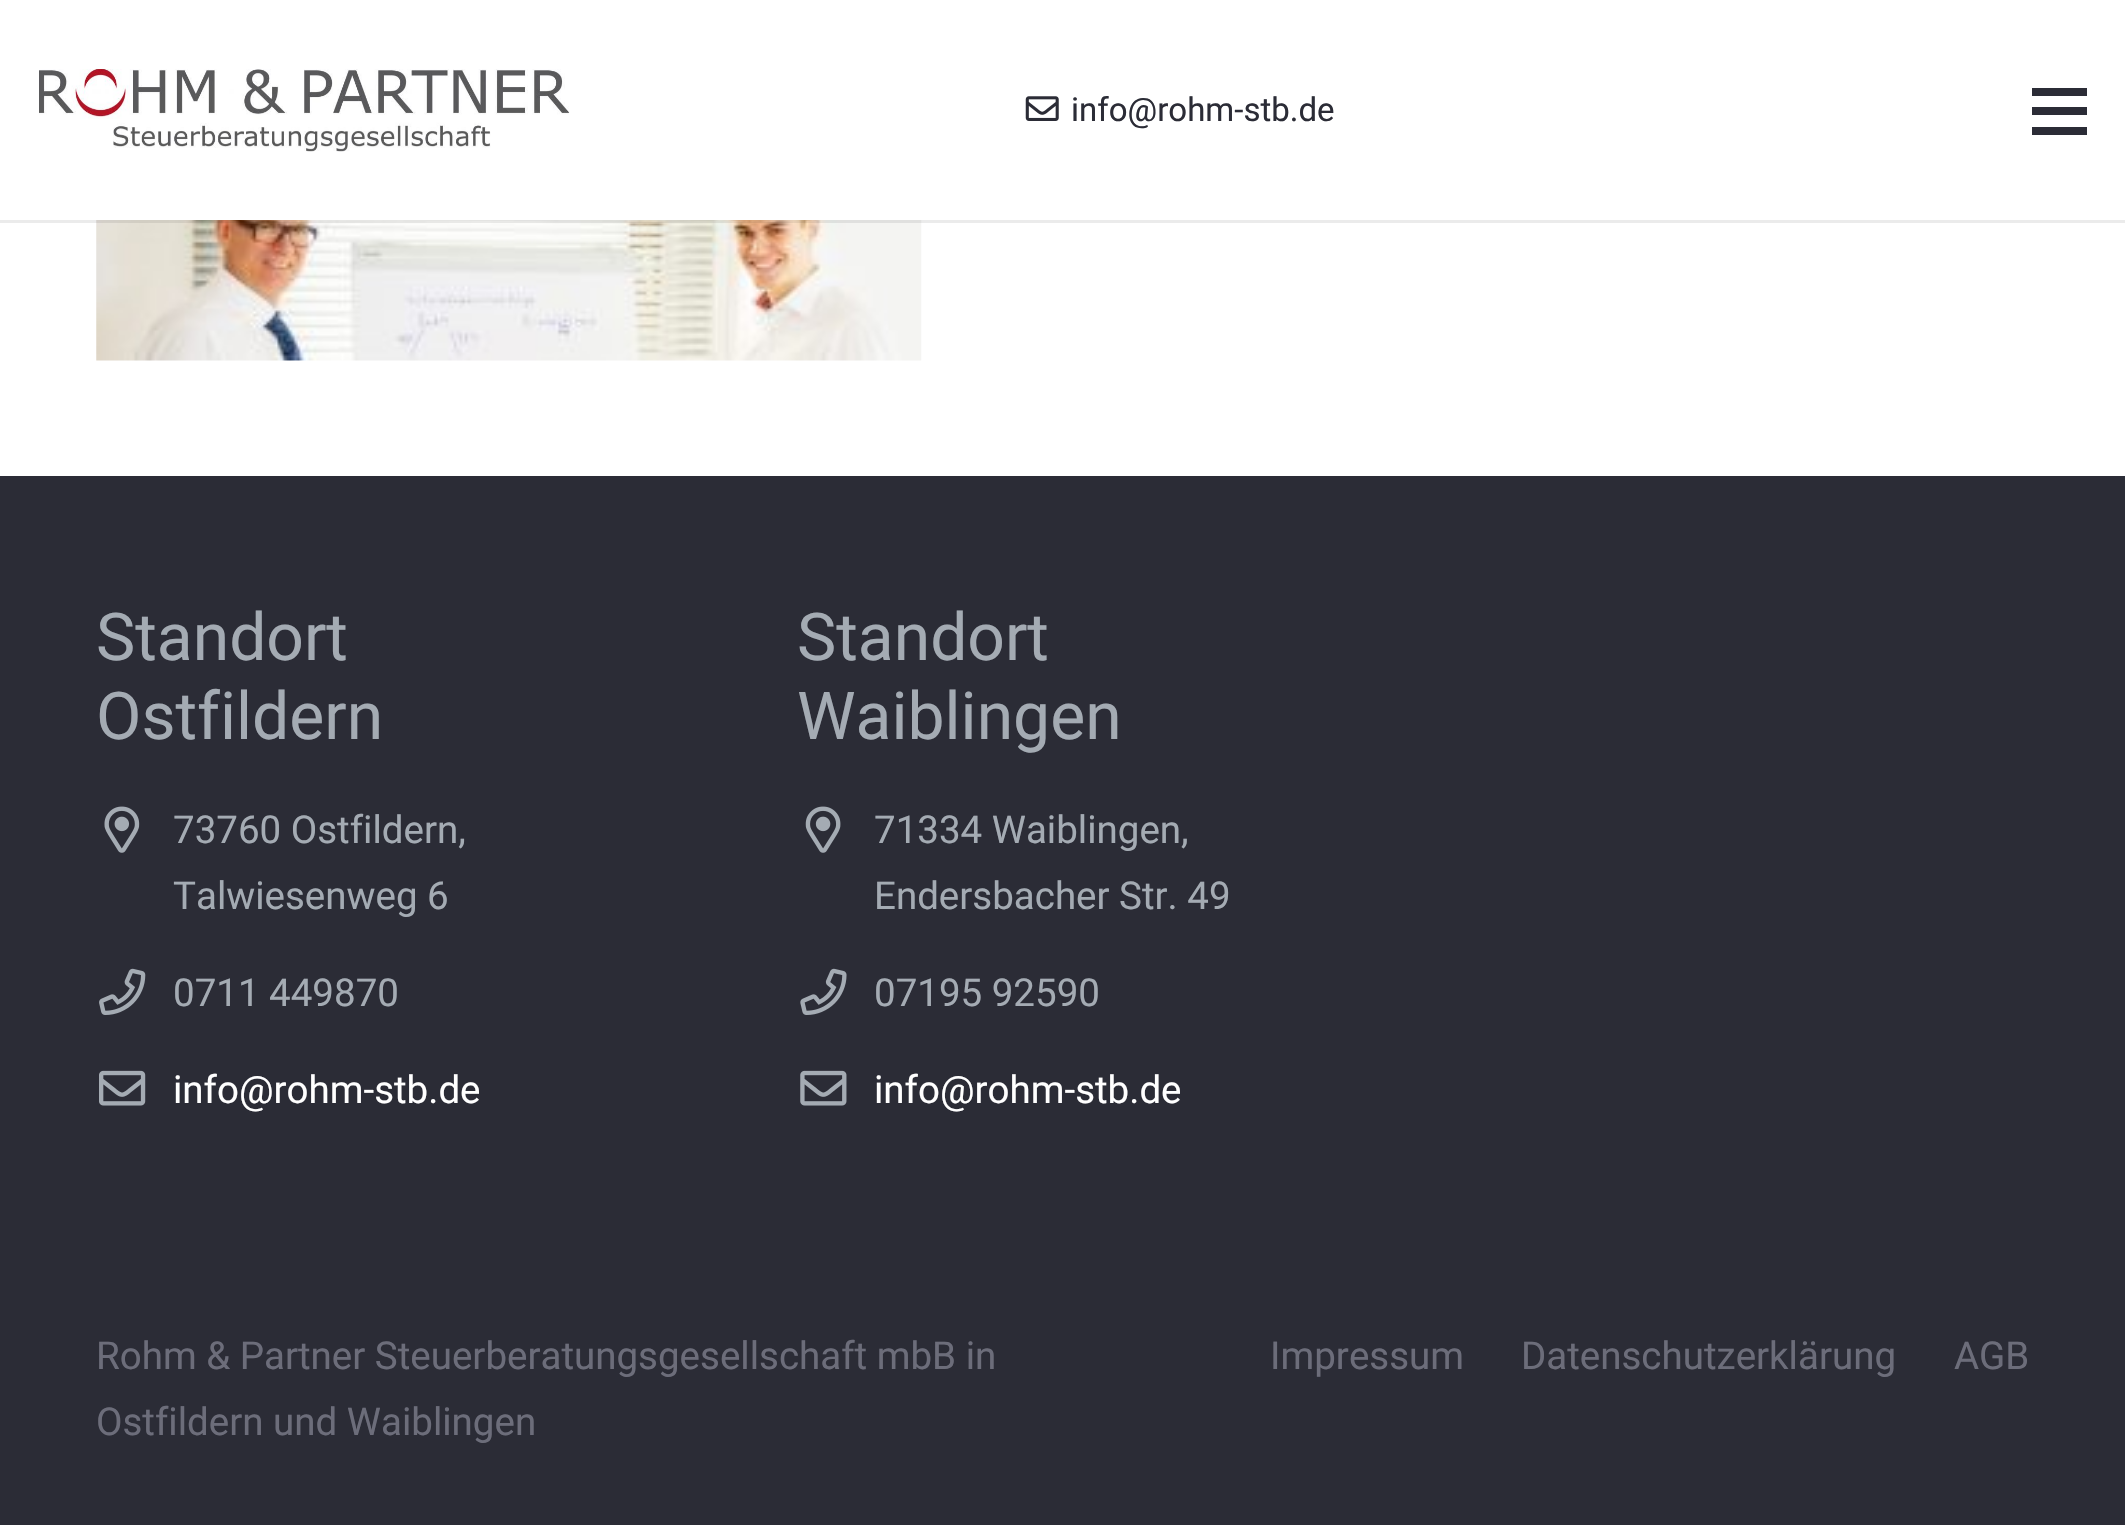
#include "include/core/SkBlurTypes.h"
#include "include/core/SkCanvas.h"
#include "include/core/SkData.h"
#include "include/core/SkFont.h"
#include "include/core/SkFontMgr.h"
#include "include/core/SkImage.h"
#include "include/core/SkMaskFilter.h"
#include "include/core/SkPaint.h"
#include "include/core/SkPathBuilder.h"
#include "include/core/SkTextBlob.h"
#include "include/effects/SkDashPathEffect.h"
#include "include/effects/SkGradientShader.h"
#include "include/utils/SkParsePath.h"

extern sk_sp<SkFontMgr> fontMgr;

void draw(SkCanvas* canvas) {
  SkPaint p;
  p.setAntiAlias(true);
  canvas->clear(SK_ColorWHITE);
  canvas->drawImageRect(SkImages::DeferredFromEncodedData(SkData::MakeFromFileName("images/3.png")), SkRect::MakeLTRB(96, 220, 922, 361), SkSamplingOptions());
  p.setColor(SkColorSetARGB(20, 0, 0, 0));
  canvas->drawPath(SkPathBuilder().moveTo(0, 220).lineTo(0, 223).lineTo(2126, 223).lineTo(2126, 3).lineTo(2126, 220).close().detach(), p);
  canvas->drawImageRect(SkImages::DeferredFromEncodedData(SkData::MakeFromFileName("images/1.png")), SkRect::MakeLTRB(39, 69, 570, 152), SkSamplingOptions());
  canvas->drawImageRect(SkImages::DeferredFromEncodedData(SkData::MakeFromFileName("images/2.png")), SkRect::MakeLTRB(1025, 96, 1059, 121), SkSamplingOptions());
  p.setColor(SkColorSetRGB(43, 44, 54));
  canvas->drawRect(SkRect::MakeLTRB(2032, 107, 2087, 115), p);
  canvas->drawRect(SkRect::MakeLTRB(2032, 88, 2087, 96), p);
  canvas->drawRect(SkRect::MakeLTRB(2032, 127, 2087, 135), p);
  canvas->drawRect(SkRect::MakeLTRB(0, 476, 2125, 1525), p);
  canvas->drawImageRect(SkImages::DeferredFromEncodedData(SkData::MakeFromFileName("images/4.png")), SkRect::MakeLTRB(104, 806, 140, 853), SkSamplingOptions());
  canvas->drawImageRect(SkImages::DeferredFromEncodedData(SkData::MakeFromFileName("images/5.png")), SkRect::MakeLTRB(99, 968, 146, 1015), SkSamplingOptions());
  canvas->drawImageRect(SkImages::DeferredFromEncodedData(SkData::MakeFromFileName("images/6.png")), SkRect::MakeLTRB(99, 1070, 146, 1106), SkSamplingOptions());
  canvas->drawImageRect(SkImages::DeferredFromEncodedData(SkData::MakeFromFileName("images/7.png")), SkRect::MakeLTRB(805, 806, 841, 853), SkSamplingOptions());
  canvas->drawImageRect(SkImages::DeferredFromEncodedData(SkData::MakeFromFileName("images/8.png")), SkRect::MakeLTRB(800, 968, 847, 1015), SkSamplingOptions());
  canvas->drawImageRect(SkImages::DeferredFromEncodedData(SkData::MakeFromFileName("images/9.png")), SkRect::MakeLTRB(800, 1070, 847, 1106), SkSamplingOptions());
  SkFont font1(fontMgr->matchFamilyStyle("Roboto", SkFontStyle::Normal()), 33);
  font1.setSubpixel(true);
  canvas->drawString("info@rohm-stb.de", 1071, 121, font1, p);
  SkFont font2(fontMgr->matchFamilyStyle("Roboto", SkFontStyle::Normal()), 66);
  font2.setSubpixel(true);
  p.setColor(SkColorSetRGB(164, 171, 179));
  canvas->drawString("Standort", 96, 660, font2, p);
  canvas->drawString("Ostfildern", 96, 739, font2, p);
  SkFont font3(fontMgr->matchFamilyStyle("Roboto", SkFontStyle::Normal()), 38.5f);
  font3.setSubpixel(true);
  canvas->drawString("73760 Ostfildern,", 173, 843, font3, p);
  canvas->drawString("Talwiesenweg 6", 173, 909, font3, p);
  canvas->drawString("0711 449870", 173, 1006, font3, p);
  p.setColor(SK_ColorWHITE);
  canvas->drawString("info@rohm-stb.de", 173, 1103, font3, p);
  p.setColor(SkColorSetRGB(164, 171, 179));
  canvas->drawString("Standort", 797, 660, font2, p);
  canvas->drawString("Waiblingen", 797, 739, font2, p);
  canvas->drawString("71334 Waiblingen,", 874, 843, font3, p);
  canvas->drawString("Endersbacher Str. 49", 874, 909, font3, p);
  canvas->drawString("07195 92590", 874, 1006, font3, p);
  p.setColor(SK_ColorWHITE);
  canvas->drawString("info@rohm-stb.de", 874, 1103, font3, p);
  p.setColor(SkColorSetRGB(108, 109, 122));
  canvas->drawString("Rohm & Partner Steuerberatungsgesellschaft mbB in", 96, 1369, font3, p);
  canvas->drawString("Ostfildern und Waiblingen", 96, 1435, font3, p);
  canvas->drawString("Impressum", 1270, 1369, font3, p);
  canvas->drawString("Datenschutzerklärung", 1521, 1369, font3, p);
  canvas->drawString("AGB", 1954, 1369, font3, p);
}
